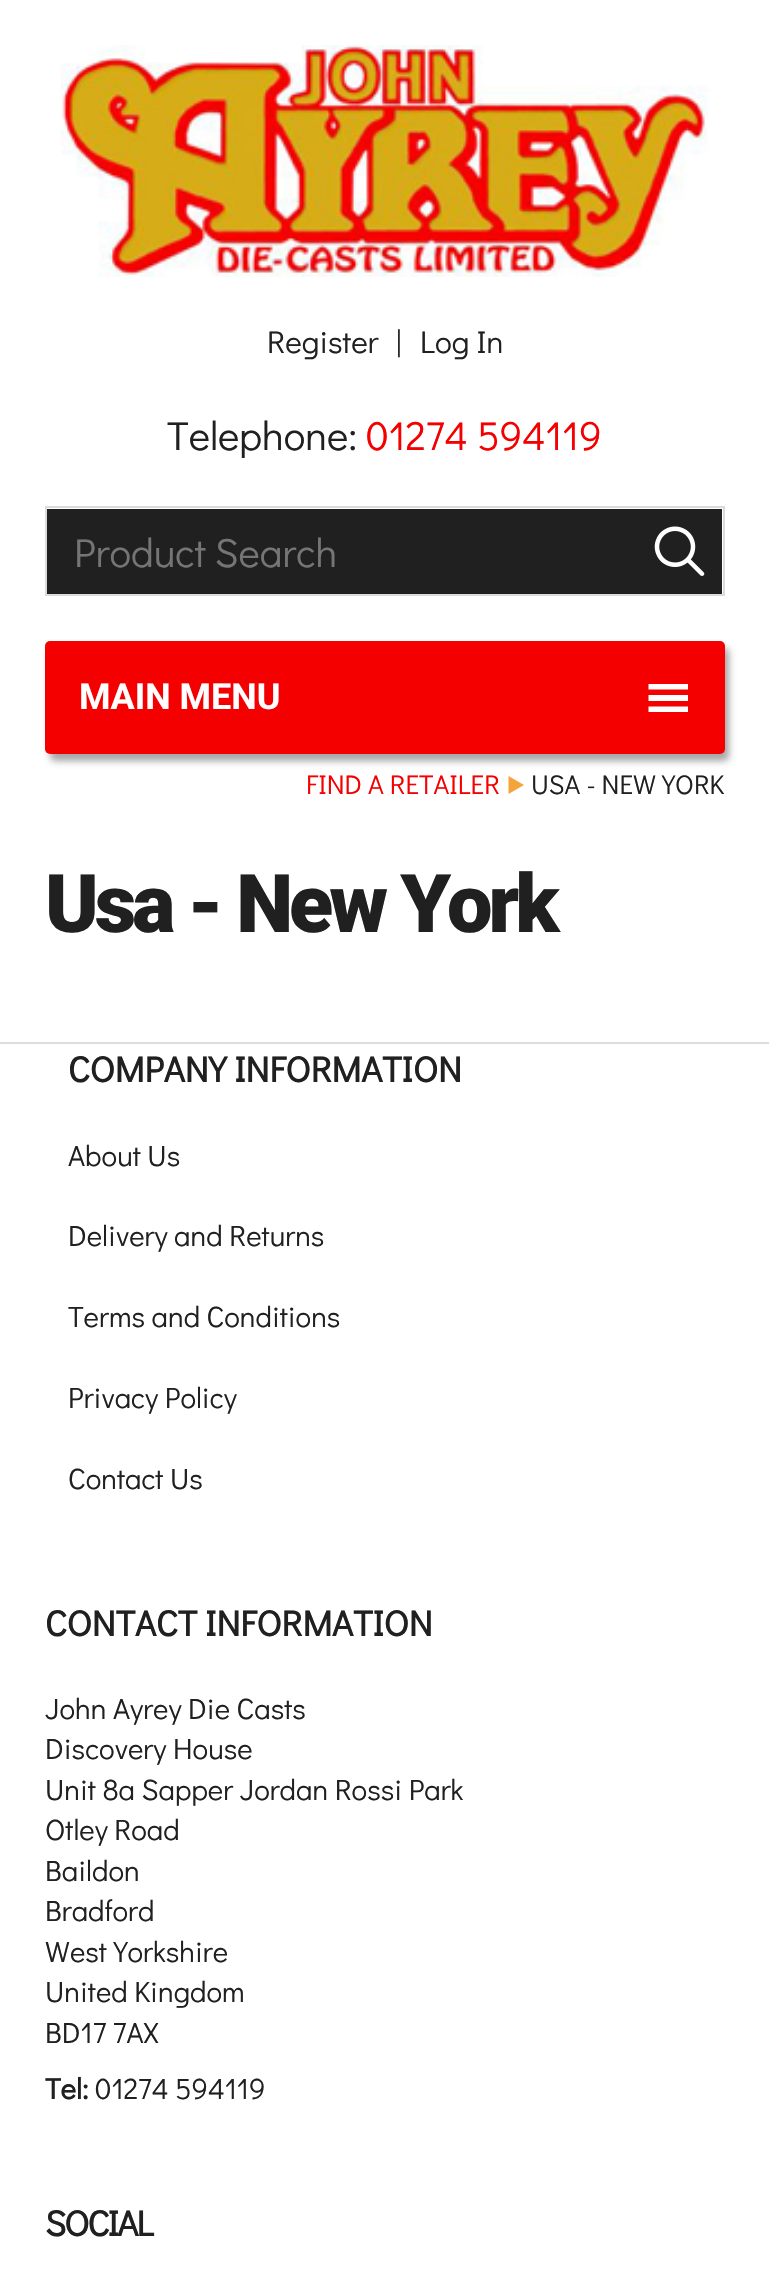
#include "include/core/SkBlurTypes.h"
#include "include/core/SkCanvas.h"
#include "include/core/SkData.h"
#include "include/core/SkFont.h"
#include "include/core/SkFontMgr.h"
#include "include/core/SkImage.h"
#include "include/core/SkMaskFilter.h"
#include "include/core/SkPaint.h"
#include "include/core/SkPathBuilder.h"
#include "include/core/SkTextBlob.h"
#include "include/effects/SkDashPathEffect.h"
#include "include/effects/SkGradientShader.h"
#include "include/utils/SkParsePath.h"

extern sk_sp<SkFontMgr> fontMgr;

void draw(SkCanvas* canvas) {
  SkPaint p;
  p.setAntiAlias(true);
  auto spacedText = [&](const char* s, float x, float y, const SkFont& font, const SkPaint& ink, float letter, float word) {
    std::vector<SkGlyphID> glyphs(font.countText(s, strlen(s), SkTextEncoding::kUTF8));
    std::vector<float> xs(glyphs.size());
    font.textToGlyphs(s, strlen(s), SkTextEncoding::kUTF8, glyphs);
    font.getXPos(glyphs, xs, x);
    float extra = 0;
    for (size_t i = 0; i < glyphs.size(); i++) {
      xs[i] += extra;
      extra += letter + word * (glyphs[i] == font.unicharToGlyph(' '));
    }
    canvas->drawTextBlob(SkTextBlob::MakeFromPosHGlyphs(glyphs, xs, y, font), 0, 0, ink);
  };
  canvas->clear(SK_ColorWHITE);
  canvas->drawImageRect(SkImages::DeferredFromEncodedData(SkData::MakeFromFileName("images/1.png")), SkRect::MakeLTRB(60, 45, 709, 277), SkSamplingOptions());
  p.setColor(SkColorSetRGB(32, 32, 32));
  canvas->drawRect(SkRect::MakeLTRB(47, 509, 722, 594), p);
  p.setStyle(SkPaint::kStroke_Style);
  p.setStrokeWidth(2);
  p.setColor(SkColorSetRGB(219, 219, 219));
  canvas->drawRect(SkRect::MakeLTRB(46, 507, 724, 595), p);
  canvas->drawImageRect(SkImages::DeferredFromEncodedData(SkData::MakeFromFileName("images/2.png")), SkRect::MakeLTRB(654, 526, 705, 576), SkSamplingOptions());
  p.setStyle(SkPaint::kFill_Style);
  p.setColor(SkColorSetARGB(89, 0, 0, 0));
  p.setMaskFilter(SkMaskFilter::MakeBlur(kNormal_SkBlurStyle, 3.5f));
  canvas->drawRoundRect(SkRect::MakeLTRB(50, 648, 729, 761), 5, 5, p);
  p.setMaskFilter(nullptr);
  p.setColor(SkColorSetRGB(245, 0, 0));
  canvas->drawRoundRect(SkRect::MakeLTRB(45, 641, 725, 754), 5, 5, p);
  p.setColor(SK_ColorWHITE);
  canvas->drawPath(SkPathBuilder().moveTo(648.5f, 684).lineTo(688, 684).lineTo(688, 689.5f).lineTo(648.5f, 689.5f).close().moveTo(648.5f, 695).lineTo(688, 695).lineTo(688, 701).lineTo(648.5f, 701).close().moveTo(648.5f, 706.5f).lineTo(688, 706.5f).lineTo(688, 712).lineTo(648.5f, 712).close().detach(), p);
  p.setColor(SkColorSetRGB(243, 164, 59));
  canvas->drawPath(SkPathBuilder().moveTo(508.5f, 794).lineTo(508.5f, 776).lineTo(524, 785).close().detach(), p);
  p.setColor(SkColorSetRGB(221, 221, 221));
  canvas->drawRect(SkRect::MakeLTRB(0, 1042, 769, 1044), p);
  SkFont font1(fontMgr->matchFamilyStyle("Didact Gothic", SkFontStyle::Normal()), 31.5f);
  font1.setSubpixel(true);
  p.setColor(SkColorSetRGB(32, 32, 32));
  canvas->drawString("Register", 267, 353, font1, p);
  canvas->drawString("|", 396, 353, font1, p);
  canvas->drawString("Log In", 420, 353, font1, p);
  SkFont font2(fontMgr->matchFamilyStyle("Didact Gothic", SkFontStyle::Normal()), 40.5f);
  font2.setSubpixel(true);
  canvas->drawString("Telephone:", 167, 450, font2, p);
  p.setColor(SkColorSetRGB(245, 0, 0));
  canvas->drawString("01274 594119", 366, 450, font2, p);
  p.setColor(SkColorSetRGB(117, 117, 117));
  canvas->drawString("Product Search", 74, 567, font2, p);
  SkFont font3(fontMgr->matchFamilyStyle("Roboto", SkFontStyle::Bold()), 36);
  font3.setSubpixel(true);
  p.setColor(SK_ColorWHITE);
  canvas->drawString("MAIN MENU", 79, 709, font3, p);
  SkFont font4(fontMgr->matchFamilyStyle("Didact Gothic", SkFontStyle::Normal()), 27);
  font4.setSubpixel(true);
  p.setColor(SkColorSetRGB(245, 0, 0));
  canvas->drawString("FIND A RETAILER", 306, 794, font4, p);
  p.setColor(SkColorSetRGB(32, 32, 32));
  canvas->drawString("USA - NEW YORK", 531, 794, font4, p);
  SkFont font5(fontMgr->matchFamilyStyle("Roboto", SkFontStyle(900, SkFontStyle::kNormal_Width, SkFontStyle::kUpright_Slant)), 81);
  font5.setSubpixel(true);
  spacedText("Usa - New York", 45, 932, font5, p, -4, 0);
  SkFont font6(fontMgr->matchFamilyStyle("Didact Gothic", SkFontStyle::Bold()), 36);
  font6.setSubpixel(true);
  canvas->drawString("COMPANY INFORMATION", 68, 1082, font6, p);
  SkFont font7(fontMgr->matchFamilyStyle("Didact Gothic", SkFontStyle::Normal()), 29.25f);
  font7.setSubpixel(true);
  canvas->drawString("About Us", 68, 1166, font7, p);
  canvas->drawString("Delivery and Returns", 68, 1246, font7, p);
  canvas->drawString("Terms and Conditions", 68, 1327, font7, p);
  canvas->drawString("Privacy Policy", 68, 1408, font7, p);
  canvas->drawString("Contact Us", 68, 1489, font7, p);
  canvas->drawString("CONTACT INFORMATION", 45, 1636, font6, p);
  canvas->drawString("John Ayrey Die Casts", 45, 1719, font7, p);
  canvas->drawString("Discovery House", 45, 1759, font7, p);
  canvas->drawString("Unit 8a Sapper Jordan Rossi Park", 45, 1800, font7, p);
  canvas->drawString("Otley Road", 45, 1840, font7, p);
  canvas->drawString("Baildon", 45, 1881, font7, p);
  canvas->drawString("Bradford", 45, 1921, font7, p);
  canvas->drawString("West Yorkshire", 45, 1962, font7, p);
  canvas->drawString("United Kingdom", 45, 2002, font7, p);
  canvas->drawString("BD17 7AX", 45, 2043, font7, p);
  SkFont font8(fontMgr->matchFamilyStyle("Didact Gothic", SkFontStyle::Bold()), 29.25f);
  font8.setSubpixel(true);
  canvas->drawString("Tel:", 45, 2099, font8, p);
  canvas->drawString("01274 594119", 95, 2099, font7, p);
  spacedText("SOCIAL", 45, 2236, font6, p, -1.75f, 0);
}
